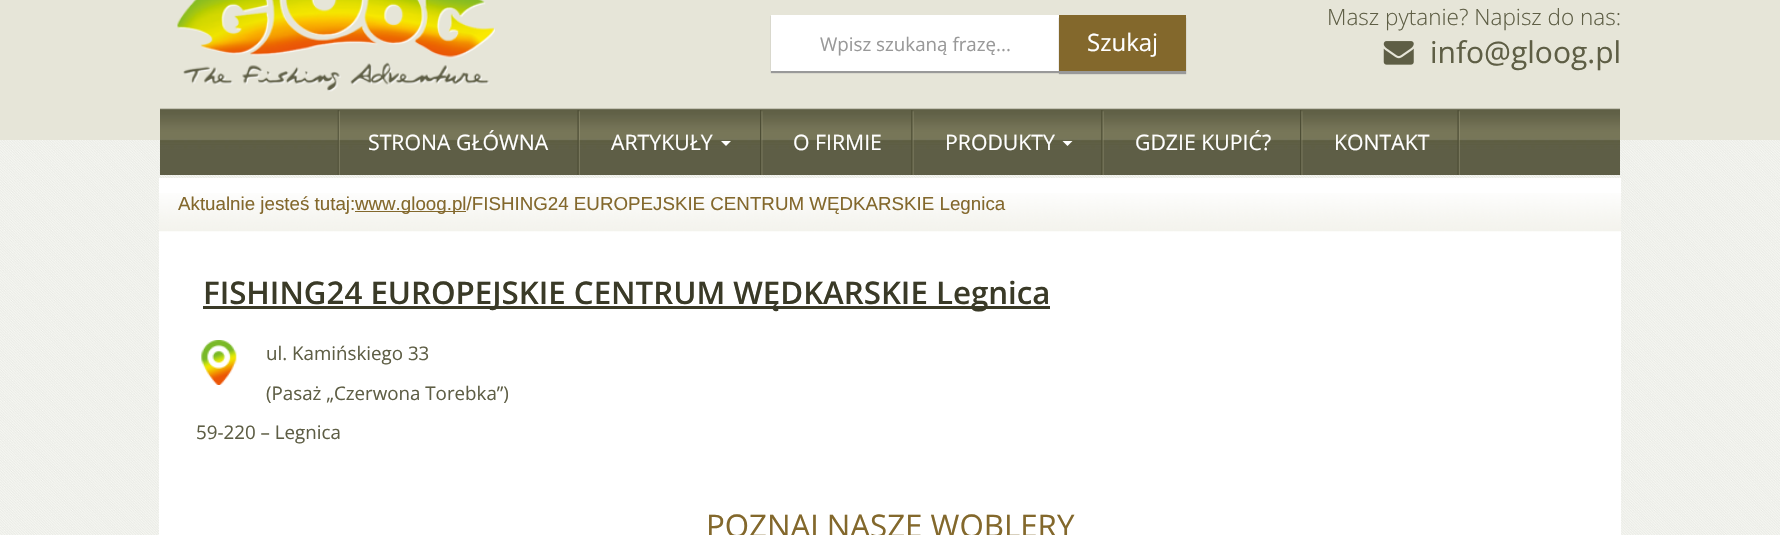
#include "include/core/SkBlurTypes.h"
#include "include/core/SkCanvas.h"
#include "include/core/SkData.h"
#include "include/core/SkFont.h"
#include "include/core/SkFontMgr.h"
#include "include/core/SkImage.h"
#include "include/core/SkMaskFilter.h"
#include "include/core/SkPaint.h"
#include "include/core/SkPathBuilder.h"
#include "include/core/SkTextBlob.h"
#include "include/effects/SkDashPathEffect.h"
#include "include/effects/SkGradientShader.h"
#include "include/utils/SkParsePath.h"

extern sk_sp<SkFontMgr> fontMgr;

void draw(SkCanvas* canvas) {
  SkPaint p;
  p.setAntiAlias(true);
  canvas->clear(SK_ColorWHITE);
  canvas->drawImageRect(SkImages::DeferredFromEncodedData(SkData::MakeFromFileName("images/1.png")), SkRect::MakeLTRB(0, 140, 1780, 535), SkSamplingOptions());
  p.setColor(SkColorSetRGB(230, 229, 216));
  canvas->drawRect(SkRect::MakeLTRB(0, 0, 1780, 140), p);
  canvas->drawImageRect(SkImages::DeferredFromEncodedData(SkData::MakeFromFileName("images/2.png")), SkRect::MakeLTRB(177, 0, 495, 92), SkSamplingOptions());
  p.setColor(SkColorSetRGB(153, 153, 153));
  p.setMaskFilter(SkMaskFilter::MakeBlur(kNormal_SkBlurStyle, 0.5f));
  canvas->drawRect(SkRect::MakeLTRB(771, 16, 1059, 73), p);
  p.setMaskFilter(nullptr);
  p.setColor(SK_ColorWHITE);
  canvas->drawRect(SkRect::MakeLTRB(771, 15, 1059, 71), p);
  p.setColor(SkColorSetRGB(153, 153, 153));
  p.setMaskFilter(SkMaskFilter::MakeBlur(kNormal_SkBlurStyle, 0.5f));
  canvas->drawRect(SkRect::MakeLTRB(1059, 18, 1186, 74), p);
  p.setMaskFilter(nullptr);
  p.setColor(SkColorSetRGB(131, 104, 44));
  canvas->drawRect(SkRect::MakeLTRB(1059, 15, 1186, 71), p);
  canvas->drawImageRect(SkImages::DeferredFromEncodedData(SkData::MakeFromFileName("images/3.png")), SkRect::MakeLTRB(1383, 41, 1414, 65), SkSamplingOptions());
  canvas->drawImageRect(SkImages::DeferredFromEncodedData(SkData::MakeFromFileName("images/4.png")), SkRect::MakeLTRB(160, 108, 1620, 175), SkSamplingOptions());
  p.setColor(SkColorSetRGB(111, 111, 88));
  canvas->drawRect(SkRect::MakeLTRB(160, 109, 1620, 110), p);
  canvas->drawImageRect(SkImages::DeferredFromEncodedData(SkData::MakeFromFileName("images/5.png")), SkRect::MakeLTRB(577, 110, 580, 175), SkSamplingOptions());
  canvas->drawImageRect(SkImages::DeferredFromEncodedData(SkData::MakeFromFileName("images/6.png")), SkRect::MakeLTRB(337, 110, 340, 175), SkSamplingOptions());
  canvas->drawImageRect(SkImages::DeferredFromEncodedData(SkData::MakeFromFileName("images/7.png")), SkRect::MakeLTRB(760, 110, 763, 175), SkSamplingOptions());
  p.setColor(SK_ColorWHITE);
  canvas->drawPath(SkPathBuilder().moveTo(721, 141).lineTo(731, 141).lineTo(726, 146).close().detach(), p);
  canvas->drawImageRect(SkImages::DeferredFromEncodedData(SkData::MakeFromFileName("images/8.png")), SkRect::MakeLTRB(911, 110, 914, 175), SkSamplingOptions());
  canvas->drawImageRect(SkImages::DeferredFromEncodedData(SkData::MakeFromFileName("images/9.png")), SkRect::MakeLTRB(1101, 110, 1104, 175), SkSamplingOptions());
  canvas->drawPath(SkPathBuilder().moveTo(1062.5f, 141).lineTo(1072.5f, 141).lineTo(1067.5f, 146).close().detach(), p);
  canvas->drawImageRect(SkImages::DeferredFromEncodedData(SkData::MakeFromFileName("images/10.png")), SkRect::MakeLTRB(1300, 110, 1303, 175), SkSamplingOptions());
  canvas->drawImageRect(SkImages::DeferredFromEncodedData(SkData::MakeFromFileName("images/5.png")), SkRect::MakeLTRB(1457, 110, 1460, 175), SkSamplingOptions());
  canvas->drawRect(SkRect::MakeLTRB(159, 178, 1621, 256), p);
  canvas->drawImageRect(SkImages::DeferredFromEncodedData(SkData::MakeFromFileName("images/11.png")), SkRect::MakeLTRB(159, 193, 1621, 232), SkSamplingOptions());
  p.setColor(SkColorSetRGB(131, 104, 44));
  canvas->drawRect(SkRect::MakeLTRB(355, 211, 466, 212), p);
  p.setColor(SK_ColorWHITE);
  canvas->drawRect(SkRect::MakeLTRB(159, 256, 1621, 535), p);
  p.setColor(SkColorSetRGB(58, 58, 39));
  canvas->drawRect(SkRect::MakeLTRB(203, 306, 1050, 309), p);
  canvas->drawImageRect(SkImages::DeferredFromEncodedData(SkData::MakeFromFileName("images/12.png")), SkRect::MakeLTRB(201, 340, 237, 385), SkSamplingOptions());
  SkFont font1(fontMgr->matchFamilyStyle("Open Sans", SkFontStyle::Normal()), 18.75f);
  font1.setSubpixel(true);
  p.setColor(SkColorSetRGB(153, 153, 153));
  canvas->drawString("Wpisz szukaną frazę...", 820, 51, font1, p);
  SkFont font2(fontMgr->matchFamilyStyle("Open Sans", SkFontStyle::Normal()), 24);
  font2.setSubpixel(true);
  p.setColor(SK_ColorWHITE);
  canvas->drawString("Szukaj", 1087, 51, font2, p);
  SkFont font3(fontMgr->matchFamilyStyle("Open Sans", SkFontStyle(300, SkFontStyle::kNormal_Width, SkFontStyle::kUpright_Slant)), 22.5f);
  font3.setSubpixel(true);
  p.setColor(SkColorSetRGB(94, 94, 69));
  canvas->drawString("Masz pytanie? Napisz do nas:", 1327, 25, font3, p);
  SkFont font4(fontMgr->matchFamilyStyle("Open Sans", SkFontStyle::Normal()), 30);
  font4.setSubpixel(true);
  canvas->drawString("info@gloog.pl", 1430, 63, font4, p);
  SkFont font5(fontMgr->matchFamilyStyle("Open Sans", SkFontStyle::Normal()), 21.25f);
  font5.setSubpixel(true);
  p.setColor(SK_ColorWHITE);
  canvas->drawString("STRONA GŁÓWNA", 368, 150, font5, p);
  canvas->drawString("ARTYKUŁY", 611, 150, font5, p);
  canvas->drawString("O FIRMIE", 793, 150, font5, p);
  canvas->drawString("PRODUKTY", 945, 150, font5, p);
  canvas->drawString("GDZIE KUPIĆ?", 1135, 150, font5, p);
  canvas->drawString("KONTAKT", 1334, 150, font5, p);
  SkFont font6(fontMgr->matchFamilyStyle("Liberation Sans", SkFontStyle::Normal()), 18.75f);
  font6.setSubpixel(true);
  p.setColor(SkColorSetRGB(131, 104, 44));
  canvas->drawString("Aktualnie jesteś tutaj:", 178, 210, font6, p);
  canvas->drawString("www.gloog.pl/FISHING24 EUROPEJSKIE CENTRUM WĘDKARSKIE Legnica", 355, 210, font6, p);
  SkFont font7(fontMgr->matchFamilyStyle("Open Sans", SkFontStyle(600, SkFontStyle::kNormal_Width, SkFontStyle::kUpright_Slant)), 31.25f);
  font7.setSubpixel(true);
  p.setColor(SkColorSetRGB(58, 58, 39));
  canvas->drawString("FISHING24 EUROPEJSKIE CENTRUM WĘDKARSKIE Legnica", 203, 304, font7, p);
  p.setColor(SkColorSetRGB(94, 94, 69));
  canvas->drawString("ul. Kamińskiego 33", 266, 360, font1, p);
  canvas->drawString("(Pasaż „Czerwona Torebka”)", 266, 400, font1, p);
  canvas->drawString("59-220 – Legnica", 196, 439, font1, p);
  SkFont font8(fontMgr->matchFamilyStyle("Open Sans", SkFontStyle::Normal()), 31.25f);
  font8.setSubpixel(true);
  p.setColor(SkColorSetRGB(131, 104, 44));
  canvas->drawString("POZNAJ NASZE WOBLERY", 706, 537, font8, p);
}
